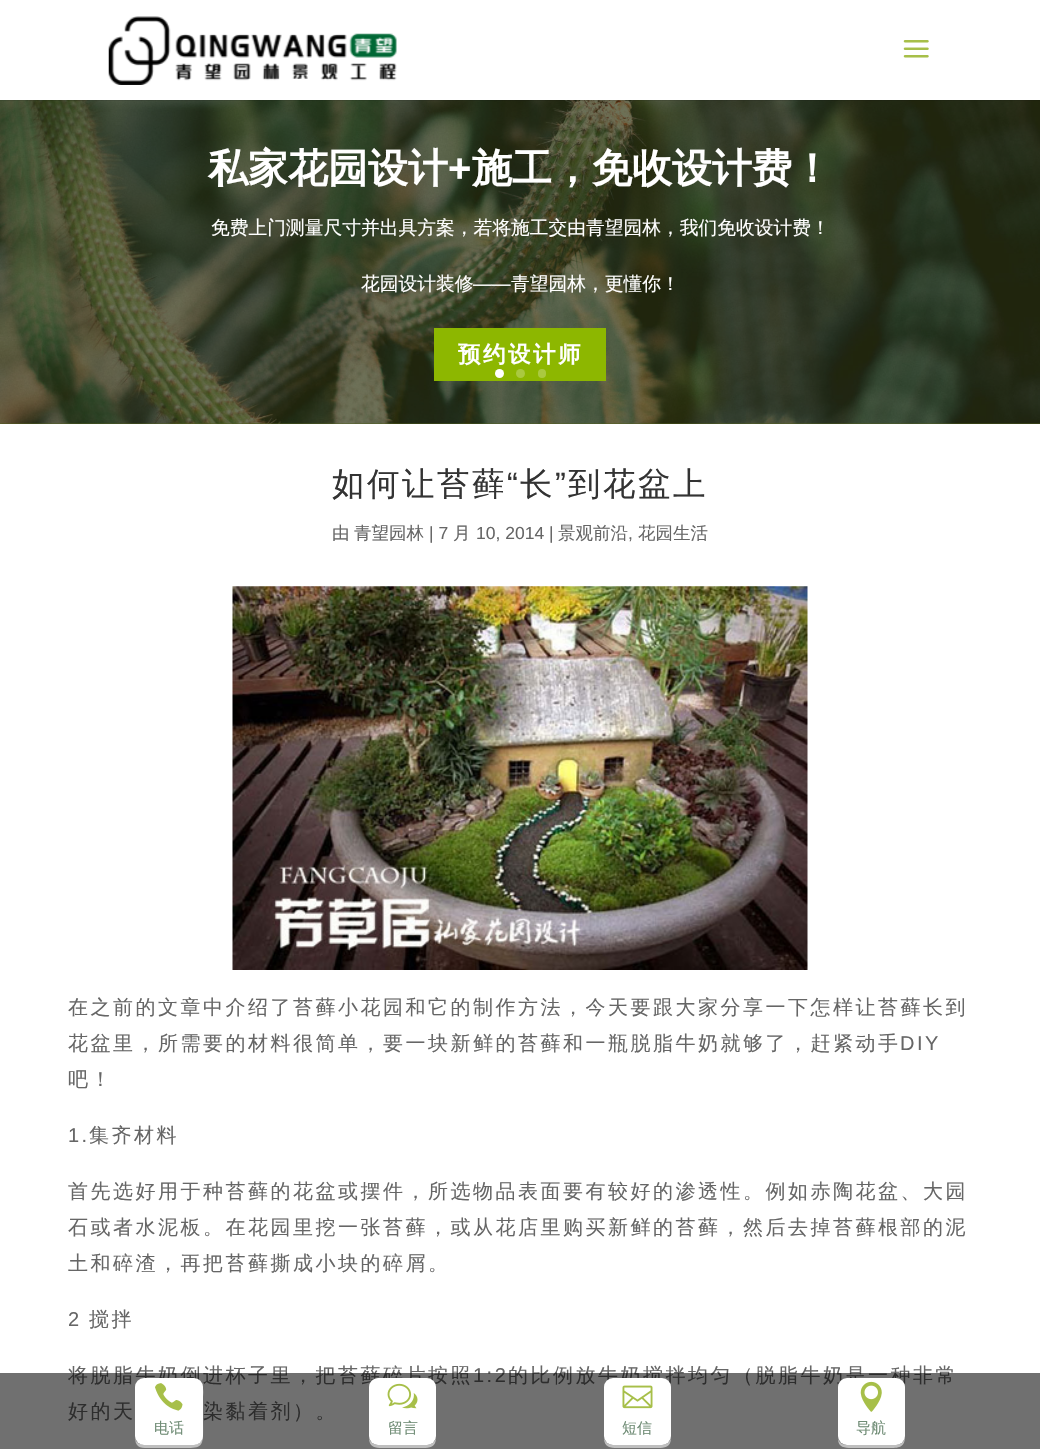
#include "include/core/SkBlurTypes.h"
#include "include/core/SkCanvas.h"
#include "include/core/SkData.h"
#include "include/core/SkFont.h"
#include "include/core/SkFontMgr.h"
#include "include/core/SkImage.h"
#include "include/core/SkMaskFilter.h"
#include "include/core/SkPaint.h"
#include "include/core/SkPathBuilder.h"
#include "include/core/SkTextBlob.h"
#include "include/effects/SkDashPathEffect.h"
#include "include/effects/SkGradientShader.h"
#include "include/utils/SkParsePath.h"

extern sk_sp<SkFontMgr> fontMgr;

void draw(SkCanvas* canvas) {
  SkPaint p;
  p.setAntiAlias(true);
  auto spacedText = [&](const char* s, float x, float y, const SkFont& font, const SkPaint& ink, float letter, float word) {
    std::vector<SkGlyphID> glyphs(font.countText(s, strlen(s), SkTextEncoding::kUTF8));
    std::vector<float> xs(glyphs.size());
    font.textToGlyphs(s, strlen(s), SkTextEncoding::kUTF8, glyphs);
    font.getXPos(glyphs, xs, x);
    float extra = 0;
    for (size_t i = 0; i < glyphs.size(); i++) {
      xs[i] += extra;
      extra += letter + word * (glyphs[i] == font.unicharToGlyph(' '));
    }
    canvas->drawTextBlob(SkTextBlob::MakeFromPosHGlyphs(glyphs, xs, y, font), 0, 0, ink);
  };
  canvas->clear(SK_ColorWHITE);
  p.setColor(SkColorSetRGB(79, 93, 26));
  canvas->drawRect(SkRect::MakeLTRB(0, 423, 1040, 424), p);
  canvas->drawImageRect(SkImages::DeferredFromEncodedData(SkData::MakeFromFileName("images/3.png")), SkRect::MakeLTRB(0, 100, 1040, 424), SkSamplingOptions());
  p.setColor(SkColorSetARGB(26, 0, 0, 0));
  canvas->drawRect(SkRect::MakeLTRB(0, 100, 1040, 101), p);
  canvas->drawImageRect(SkImages::DeferredFromEncodedData(SkData::MakeFromFileName("images/1.png")), SkRect::MakeLTRB(108, 16, 397, 85), SkSamplingOptions());
  canvas->drawImageRect(SkImages::DeferredFromEncodedData(SkData::MakeFromFileName("images/2.png")), SkRect::MakeLTRB(903, 40, 929, 58), SkSamplingOptions());
  p.setColor(SkColorSetRGB(141, 183, 0));
  canvas->drawRect(SkRect::MakeLTRB(434, 328, 606, 381), p);
  p.setColor(SK_ColorWHITE);
  canvas->drawCircle(499.5f, 373.5f, 4.5f, p);
  p.setColor(SkColorSetRGB(170, 201, 64));
  canvas->drawCircle(520.5f, 373.5f, 4.5f, p);
  canvas->drawRoundRect(SkRect::MakeLTRB(538, 369, 546, 378), 4, 4, p);
  canvas->drawImageRect(SkImages::DeferredFromEncodedData(SkData::MakeFromFileName("images/4.png")), SkRect::MakeLTRB(232, 586, 808, 970), SkSamplingOptions());
  SkFont font1(fontMgr->matchFamilyStyle("WenQuanYi Zen Hei", SkFontStyle::Bold()), 40);
  font1.setSubpixel(true);
  p.setColor(SK_ColorWHITE);
  canvas->drawString("私家花园设计", 208, 182, font1, p);
  SkFont font2(fontMgr->matchFamilyStyle("Liberation Sans", SkFontStyle::Bold()), 40);
  font2.setSubpixel(true);
  canvas->drawString("+", 448, 182, font2, p);
  canvas->drawString("施工，免收设计费！", 472, 182, font1, p);
  SkFont font3(fontMgr->matchFamilyStyle("WenQuanYi Zen Hei", SkFontStyle(500, SkFontStyle::kNormal_Width, SkFontStyle::kUpright_Slant)), 18.75f);
  font3.setSubpixel(true);
  canvas->drawString("免费上门测量尺寸并出具方案，若将施工交由青望园林，我们免收设计费！", 211, 234, font3, p);
  canvas->drawString("花园设计装修", 361, 290, font3, p);
  SkFont font4(fontMgr->matchFamilyStyle("Liberation Sans", SkFontStyle::Normal()), 18.75f);
  font4.setSubpixel(true);
  canvas->drawString("——", 473, 290, font4, p);
  canvas->drawString("青望园林，更懂你！", 511, 290, font3, p);
  SkFont font5(fontMgr->matchFamilyStyle("WenQuanYi Zen Hei", SkFontStyle::Bold()), 22.5f);
  font5.setSubpixel(true);
  spacedText("预约设计师", 458, 362, font5, p, 2.5f, 0);
  SkFont font6(fontMgr->matchFamilyStyle("WenQuanYi Zen Hei", SkFontStyle(500, SkFontStyle::kNormal_Width, SkFontStyle::kUpright_Slant)), 32.5f);
  font6.setSubpixel(true);
  p.setColor(SkColorSetRGB(51, 51, 51));
  spacedText("如何让苔藓", 332, 495, font6, p, 2.5f, 0);
  SkFont font7(fontMgr->matchFamilyStyle("Liberation Sans", SkFontStyle::Normal()), 32.5f);
  font7.setSubpixel(true);
  spacedText("“", 507, 495, font7, p, 2.5f, 0);
  spacedText("长", 520, 495, font6, p, 2.5f, 0);
  spacedText("”", 555, 495, font7, p, 2.5f, 0);
  spacedText("到花盆上", 568, 495, font6, p, 2.5f, 0);
  SkFont font8(fontMgr->matchFamilyStyle("WenQuanYi Zen Hei", SkFontStyle(500, SkFontStyle::kNormal_Width, SkFontStyle::kUpright_Slant)), 17.5f);
  font8.setSubpixel(true);
  p.setColor(SkColorSetRGB(102, 102, 102));
  canvas->drawString("由", 332, 539, font8, p);
  canvas->drawString("青望园林", 354, 539, font8, p);
  SkFont font9(fontMgr->matchFamilyStyle("Liberation Sans", SkFontStyle::Normal()), 17.5f);
  font9.setSubpixel(true);
  canvas->drawString("| 7", 429, 539, font9, p);
  canvas->drawString("月", 453, 539, font8, p);
  canvas->drawString("10, 2014 |", 476, 539, font9, p);
  canvas->drawString("景观前沿", 558, 539, font8, p);
  canvas->drawString(",", 628, 539, font9, p);
  canvas->drawString("花园生活", 638, 539, font8, p);
  SkFont font10(fontMgr->matchFamilyStyle("WenQuanYi Zen Hei", SkFontStyle(500, SkFontStyle::kNormal_Width, SkFontStyle::kUpright_Slant)), 20);
  font10.setSubpixel(true);
  spacedText("在之前的文章中介绍了苔藓小花园和它的制作方法，今天要跟大家分享一下怎样让苔藓长到", 68, 1014, font10, p, 2.5f, 0);
  spacedText("花盆里，所需要的材料很简单，要一块新鲜的苔藓和一瓶脱脂牛奶就够了，赶紧动手", 68, 1050, font10, p, 2.5f, 0);
  SkFont font11(fontMgr->matchFamilyStyle("Liberation Sans", SkFontStyle::Normal()), 20);
  font11.setSubpixel(true);
  spacedText("DIY", 900, 1050, font11, p, 2.5f, 0);
  spacedText("吧！", 68, 1086, font10, p, 2.5f, 0);
  spacedText("1.", 68, 1142, font11, p, 2.5f, 0);
  spacedText("集齐材料", 89, 1142, font10, p, 2.5f, 0);
  spacedText("首先选好用于种苔藓的花盆或摆件，所选物品表面要有较好的渗透性。例如赤陶花盆、大园", 68, 1198, font10, p, 2.5f, 0);
  spacedText("石或者水泥板。在花园里挖一张苔藓，或从花店里购买新鲜的苔藓，然后去掉苔藓根部的泥", 68, 1234, font10, p, 2.5f, 0);
  spacedText("土和碎渣，再把苔藓撕成小块的碎屑。", 68, 1270, font10, p, 2.5f, 0);
  spacedText("2", 68, 1326, font11, p, 2.5f, 0);
  spacedText("搅拌", 89, 1326, font10, p, 2.5f, 0);
  spacedText("将脱脂牛奶倒进杯子里，把苔藓碎片按照", 68, 1382, font10, p, 2.5f, 0);
  spacedText("1:2", 473, 1382, font11, p, 2.5f, 0);
  spacedText("的比例放牛奶搅拌均匀（脱脂牛奶是一种非常", 508, 1382, font10, p, 2.5f, 0);
  spacedText("好的天", 68, 1418, font10, p, 2.5f, 0);
  spacedText("染黏着剂）。", 203, 1418, font10, p, 2.5f, 0);
  p.setColor(SkColorSetARGB(143, 0, 0, 0));
  canvas->drawRect(SkRect::MakeLTRB(0, 1373, 1040, 1449), p);
  p.setColor(SkColorSetRGB(191, 191, 191));
  canvas->drawPath(SkPathBuilder().moveTo(135, 1436).cubicTo(135, 1449, 141, 1448, 152, 1448).lineTo(169, 1448).cubicTo(207, 1448, 203, 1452, 203, 1414).lineTo(203, 1397).cubicTo(203, 1395, 204, 1389, 202, 1386).lineTo(202, 1438).cubicTo(201, 1446, 192, 1445, 185, 1445).lineTo(152, 1445).cubicTo(145, 1445, 135, 1446, 135, 1436).close().detach(), p);
  p.setColor(SK_ColorWHITE);
  canvas->drawRoundRect(SkRect::MakeLTRB(135, 1378, 203, 1445), 9, 9, p);
  canvas->drawImageRect(SkImages::DeferredFromEncodedData(SkData::MakeFromFileName("images/5.png")), SkRect::MakeLTRB(155, 1383, 183, 1411), SkSamplingOptions());
  SkFont font12(fontMgr->matchFamilyStyle("WenQuanYi Zen Hei", SkFontStyle(500, SkFontStyle::kNormal_Width, SkFontStyle::kUpright_Slant)), 15);
  font12.setSubpixel(true);
  p.setColor(SkColorSetRGB(110, 139, 116));
  canvas->drawString("电话", 154, 1433, font12, p);
  p.setColor(SkColorSetRGB(191, 191, 191));
  canvas->drawPath(SkPathBuilder().moveTo(369, 1438).cubicTo(369, 1449, 378, 1448, 386, 1448).lineTo(419, 1448).cubicTo(427, 1448, 436, 1449, 436, 1438).cubicTo(435, 1442, 431, 1445, 427, 1445).lineTo(378, 1445).cubicTo(374, 1445, 370, 1442, 369, 1438).close().detach(), p);
  p.setColor(SK_ColorWHITE);
  canvas->drawRoundRect(SkRect::MakeLTRB(369, 1378, 436, 1445), 9, 9, p);
  canvas->drawImageRect(SkImages::DeferredFromEncodedData(SkData::MakeFromFileName("images/6.png")), SkRect::MakeLTRB(387, 1383, 418, 1409), SkSamplingOptions());
  p.setColor(SkColorSetRGB(110, 139, 116));
  canvas->drawString("留言", 388, 1433, font12, p);
  p.setColor(SkColorSetRGB(191, 191, 191));
  canvas->drawPath(SkPathBuilder().moveTo(604, 1438).cubicTo(604, 1449, 613, 1448, 621, 1448).lineTo(654, 1448).cubicTo(662, 1448, 671, 1449, 671, 1438).cubicTo(670, 1442, 666, 1445, 662, 1445).lineTo(613, 1445).cubicTo(609, 1445, 605, 1442, 604, 1438).close().detach(), p);
  p.setColor(SK_ColorWHITE);
  canvas->drawRoundRect(SkRect::MakeLTRB(604, 1378, 671, 1445), 9, 9, p);
  canvas->drawImageRect(SkImages::DeferredFromEncodedData(SkData::MakeFromFileName("images/7.png")), SkRect::MakeLTRB(622, 1385, 653, 1409), SkSamplingOptions());
  p.setColor(SkColorSetRGB(110, 139, 116));
  canvas->drawString("短信", 622, 1433, font12, p);
  p.setColor(SkColorSetRGB(191, 191, 191));
  canvas->drawPath(SkPathBuilder().moveTo(838, 1439).cubicTo(838, 1449, 848, 1448, 855, 1448).lineTo(888, 1448).cubicTo(899, 1448, 905, 1448, 905, 1436).cubicTo(905, 1441, 901, 1445, 896, 1445).lineTo(846, 1445).cubicTo(843, 1445, 839, 1442, 838, 1439).close().detach(), p);
  p.setColor(SK_ColorWHITE);
  canvas->drawRoundRect(SkRect::MakeLTRB(838, 1378, 905, 1445), 9, 9, p);
  canvas->drawImageRect(SkImages::DeferredFromEncodedData(SkData::MakeFromFileName("images/8.png")), SkRect::MakeLTRB(860, 1381, 882, 1412), SkSamplingOptions());
  p.setColor(SkColorSetRGB(110, 139, 116));
  canvas->drawString("导航", 856, 1433, font12, p);
}
